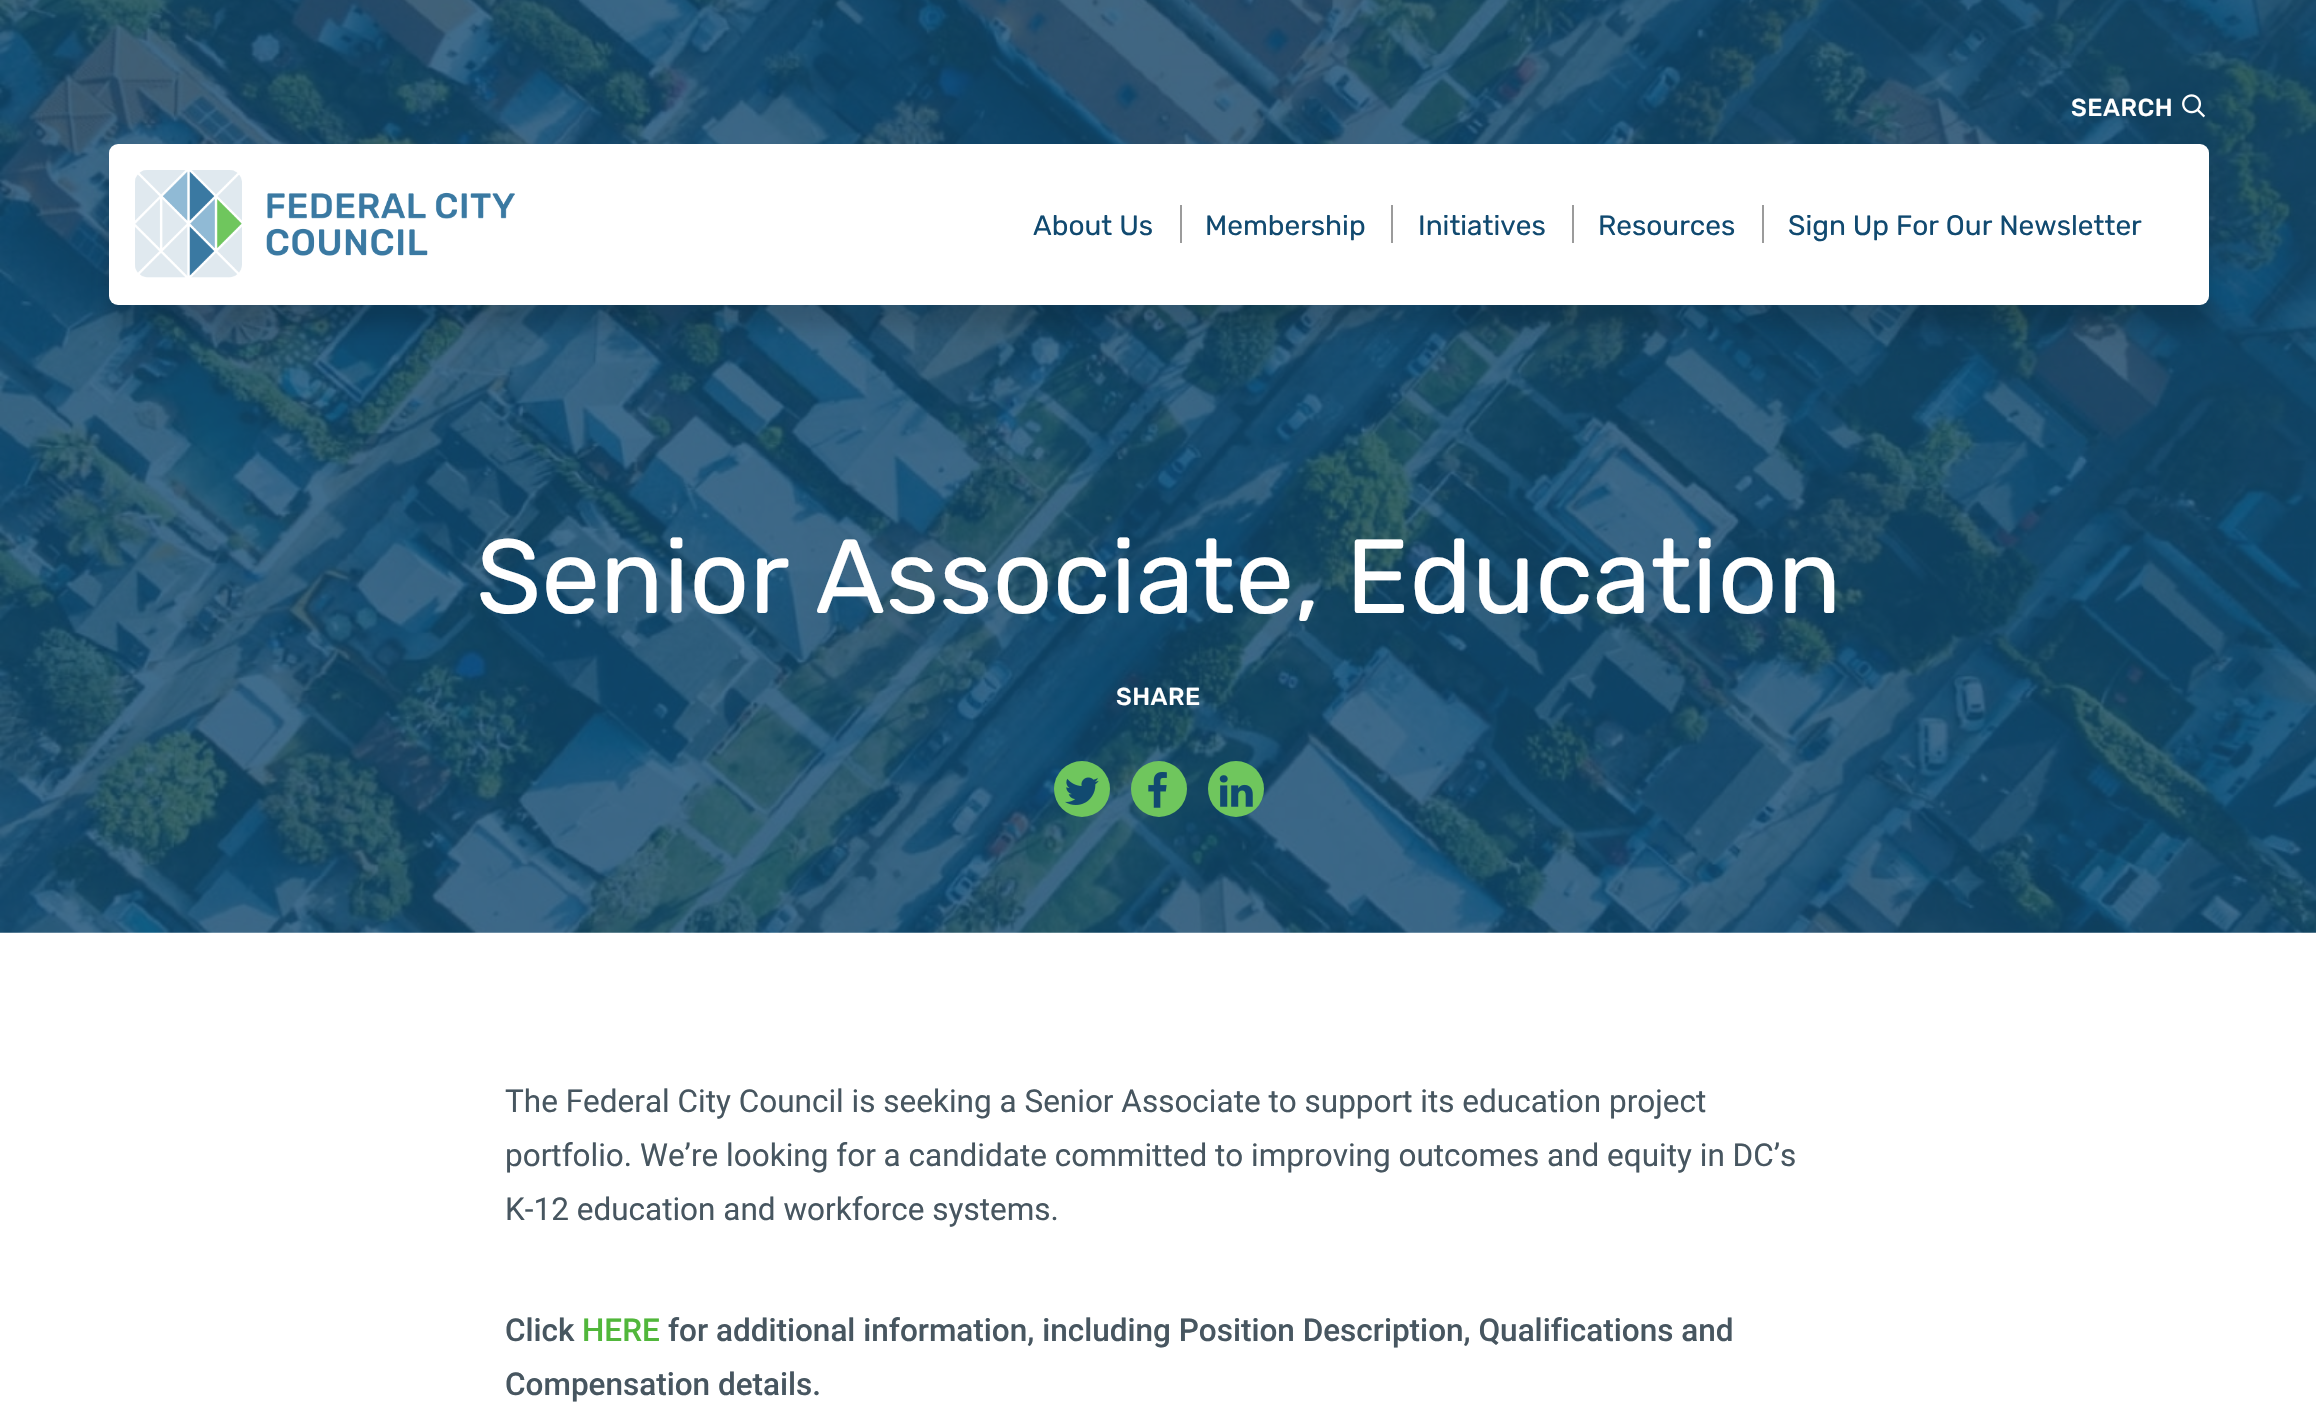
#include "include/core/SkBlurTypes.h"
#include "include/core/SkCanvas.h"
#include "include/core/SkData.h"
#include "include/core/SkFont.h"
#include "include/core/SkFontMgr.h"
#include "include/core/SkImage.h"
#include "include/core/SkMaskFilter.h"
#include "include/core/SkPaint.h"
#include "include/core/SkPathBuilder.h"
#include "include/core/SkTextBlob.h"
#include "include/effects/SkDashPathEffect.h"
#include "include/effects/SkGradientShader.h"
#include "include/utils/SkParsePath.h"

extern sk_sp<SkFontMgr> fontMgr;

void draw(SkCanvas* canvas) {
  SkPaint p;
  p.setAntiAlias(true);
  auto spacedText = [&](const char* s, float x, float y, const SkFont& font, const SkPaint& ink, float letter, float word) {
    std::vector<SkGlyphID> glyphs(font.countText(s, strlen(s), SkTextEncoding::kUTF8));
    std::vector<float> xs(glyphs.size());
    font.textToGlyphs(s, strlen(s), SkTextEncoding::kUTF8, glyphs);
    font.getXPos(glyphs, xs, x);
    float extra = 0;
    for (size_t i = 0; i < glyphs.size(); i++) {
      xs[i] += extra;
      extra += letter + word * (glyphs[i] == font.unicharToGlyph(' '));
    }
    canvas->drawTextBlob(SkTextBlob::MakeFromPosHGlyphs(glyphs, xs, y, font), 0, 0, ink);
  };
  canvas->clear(SK_ColorWHITE);
  canvas->drawImageRect(SkImages::DeferredFromEncodedData(SkData::MakeFromFileName("images/3.png")), SkRect::MakeLTRB(0, 0, 2316, 933), SkSamplingOptions());
  canvas->drawImageRect(SkImages::DeferredFromEncodedData(SkData::MakeFromFileName("images/1.png")), SkRect::MakeLTRB(2182, 94, 2205, 118), SkSamplingOptions());
  p.setColor(SkColorSetARGB(38, 0, 0, 0));
  p.setMaskFilter(SkMaskFilter::MakeBlur(kNormal_SkBlurStyle, 9.5f));
  canvas->drawRoundRect(SkRect::MakeLTRB(109, 166, 2209, 327), 9, 9, p);
  p.setMaskFilter(nullptr);
  p.setColor(SK_ColorWHITE);
  canvas->drawRoundRect(SkRect::MakeLTRB(109, 144, 2209, 305), 9, 9, p);
  canvas->drawImageRect(SkImages::DeferredFromEncodedData(SkData::MakeFromFileName("images/2.png")), SkRect::MakeLTRB(135, 170, 515, 278), SkSamplingOptions());
  p.setColor(SkColorSetRGB(155, 155, 155));
  canvas->drawRect(SkRect::MakeLTRB(1180, 205, 1182, 243), p);
  canvas->drawRect(SkRect::MakeLTRB(1391, 205, 1393, 243), p);
  canvas->drawRect(SkRect::MakeLTRB(1572, 205, 1574, 243), p);
  canvas->drawRect(SkRect::MakeLTRB(1762, 205, 1764, 243), p);
  p.setColor(SkColorSetRGB(111, 198, 93));
  canvas->drawCircle(1082, 789, 28, p);
  canvas->drawImageRect(SkImages::DeferredFromEncodedData(SkData::MakeFromFileName("images/4.png")), SkRect::MakeLTRB(1065, 777, 1099, 805), SkSamplingOptions());
  canvas->drawCircle(1159, 789, 28, p);
  canvas->drawImageRect(SkImages::DeferredFromEncodedData(SkData::MakeFromFileName("images/5.png")), SkRect::MakeLTRB(1148, 772, 1167, 808), SkSamplingOptions());
  canvas->drawCircle(1236, 789, 28, p);
  canvas->drawImageRect(SkImages::DeferredFromEncodedData(SkData::MakeFromFileName("images/6.png")), SkRect::MakeLTRB(1219, 775, 1253, 807), SkSamplingOptions());
  SkFont font1(fontMgr->matchFamilyStyle("Rubik", SkFontStyle(500, SkFontStyle::kNormal_Width, SkFontStyle::kUpright_Slant)), 24.5f);
  font1.setSubpixel(true);
  p.setColor(SK_ColorWHITE);
  spacedText("SEARCH", 2071, 116, font1, p, 0.5f, 0);
  SkFont font2(fontMgr->matchFamilyStyle("Rubik", SkFontStyle::Normal()), 28);
  font2.setSubpixel(true);
  p.setColor(SkColorSetRGB(17, 74, 112));
  canvas->drawString("About Us", 1033, 235, font2, p);
  canvas->drawString("Membership", 1205, 235, font2, p);
  canvas->drawString("Initiatives", 1418, 235, font2, p);
  canvas->drawString("Resources", 1598, 235, font2, p);
  canvas->drawString("Sign Up For Our Newsletter", 1788, 235, font2, p);
  SkFont font3(fontMgr->matchFamilyStyle("Rubik", SkFontStyle::Normal()), 105);
  font3.setSubpixel(true);
  p.setColor(SK_ColorWHITE);
  canvas->drawString("Senior Associate, Education", 476, 613, font3, p);
  spacedText("SHARE", 1116, 705, font1, p, 0.5f, 0);
  SkFont font4(fontMgr->matchFamilyStyle("Roboto", SkFontStyle::Normal()), 31.5f);
  font4.setSubpixel(true);
  p.setColor(SkColorSetRGB(71, 86, 96));
  canvas->drawString("The Federal City Council is seeking a Senior Associate to support its education project", 505, 1112, font4, p);
  canvas->drawString("portfolio. We’re looking for a candidate committed to improving outcomes and equity in DC’s", 505, 1166, font4, p);
  canvas->drawString("K-12 education and workforce systems.", 505, 1220, font4, p);
  SkFont font5(fontMgr->matchFamilyStyle("Roboto", SkFontStyle(500, SkFontStyle::kNormal_Width, SkFontStyle::kUpright_Slant)), 31.5f);
  font5.setSubpixel(true);
  canvas->drawString("Click", 505, 1341, font5, p);
  p.setColor(SkColorSetRGB(81, 183, 59));
  canvas->drawString("HERE", 582, 1341, font5, p);
  p.setColor(SkColorSetRGB(71, 86, 96));
  canvas->drawString("for additional information, including Position Description, Qualifications and", 668, 1341, font5, p);
  canvas->drawString("Compensation details.", 505, 1395, font5, p);
}
